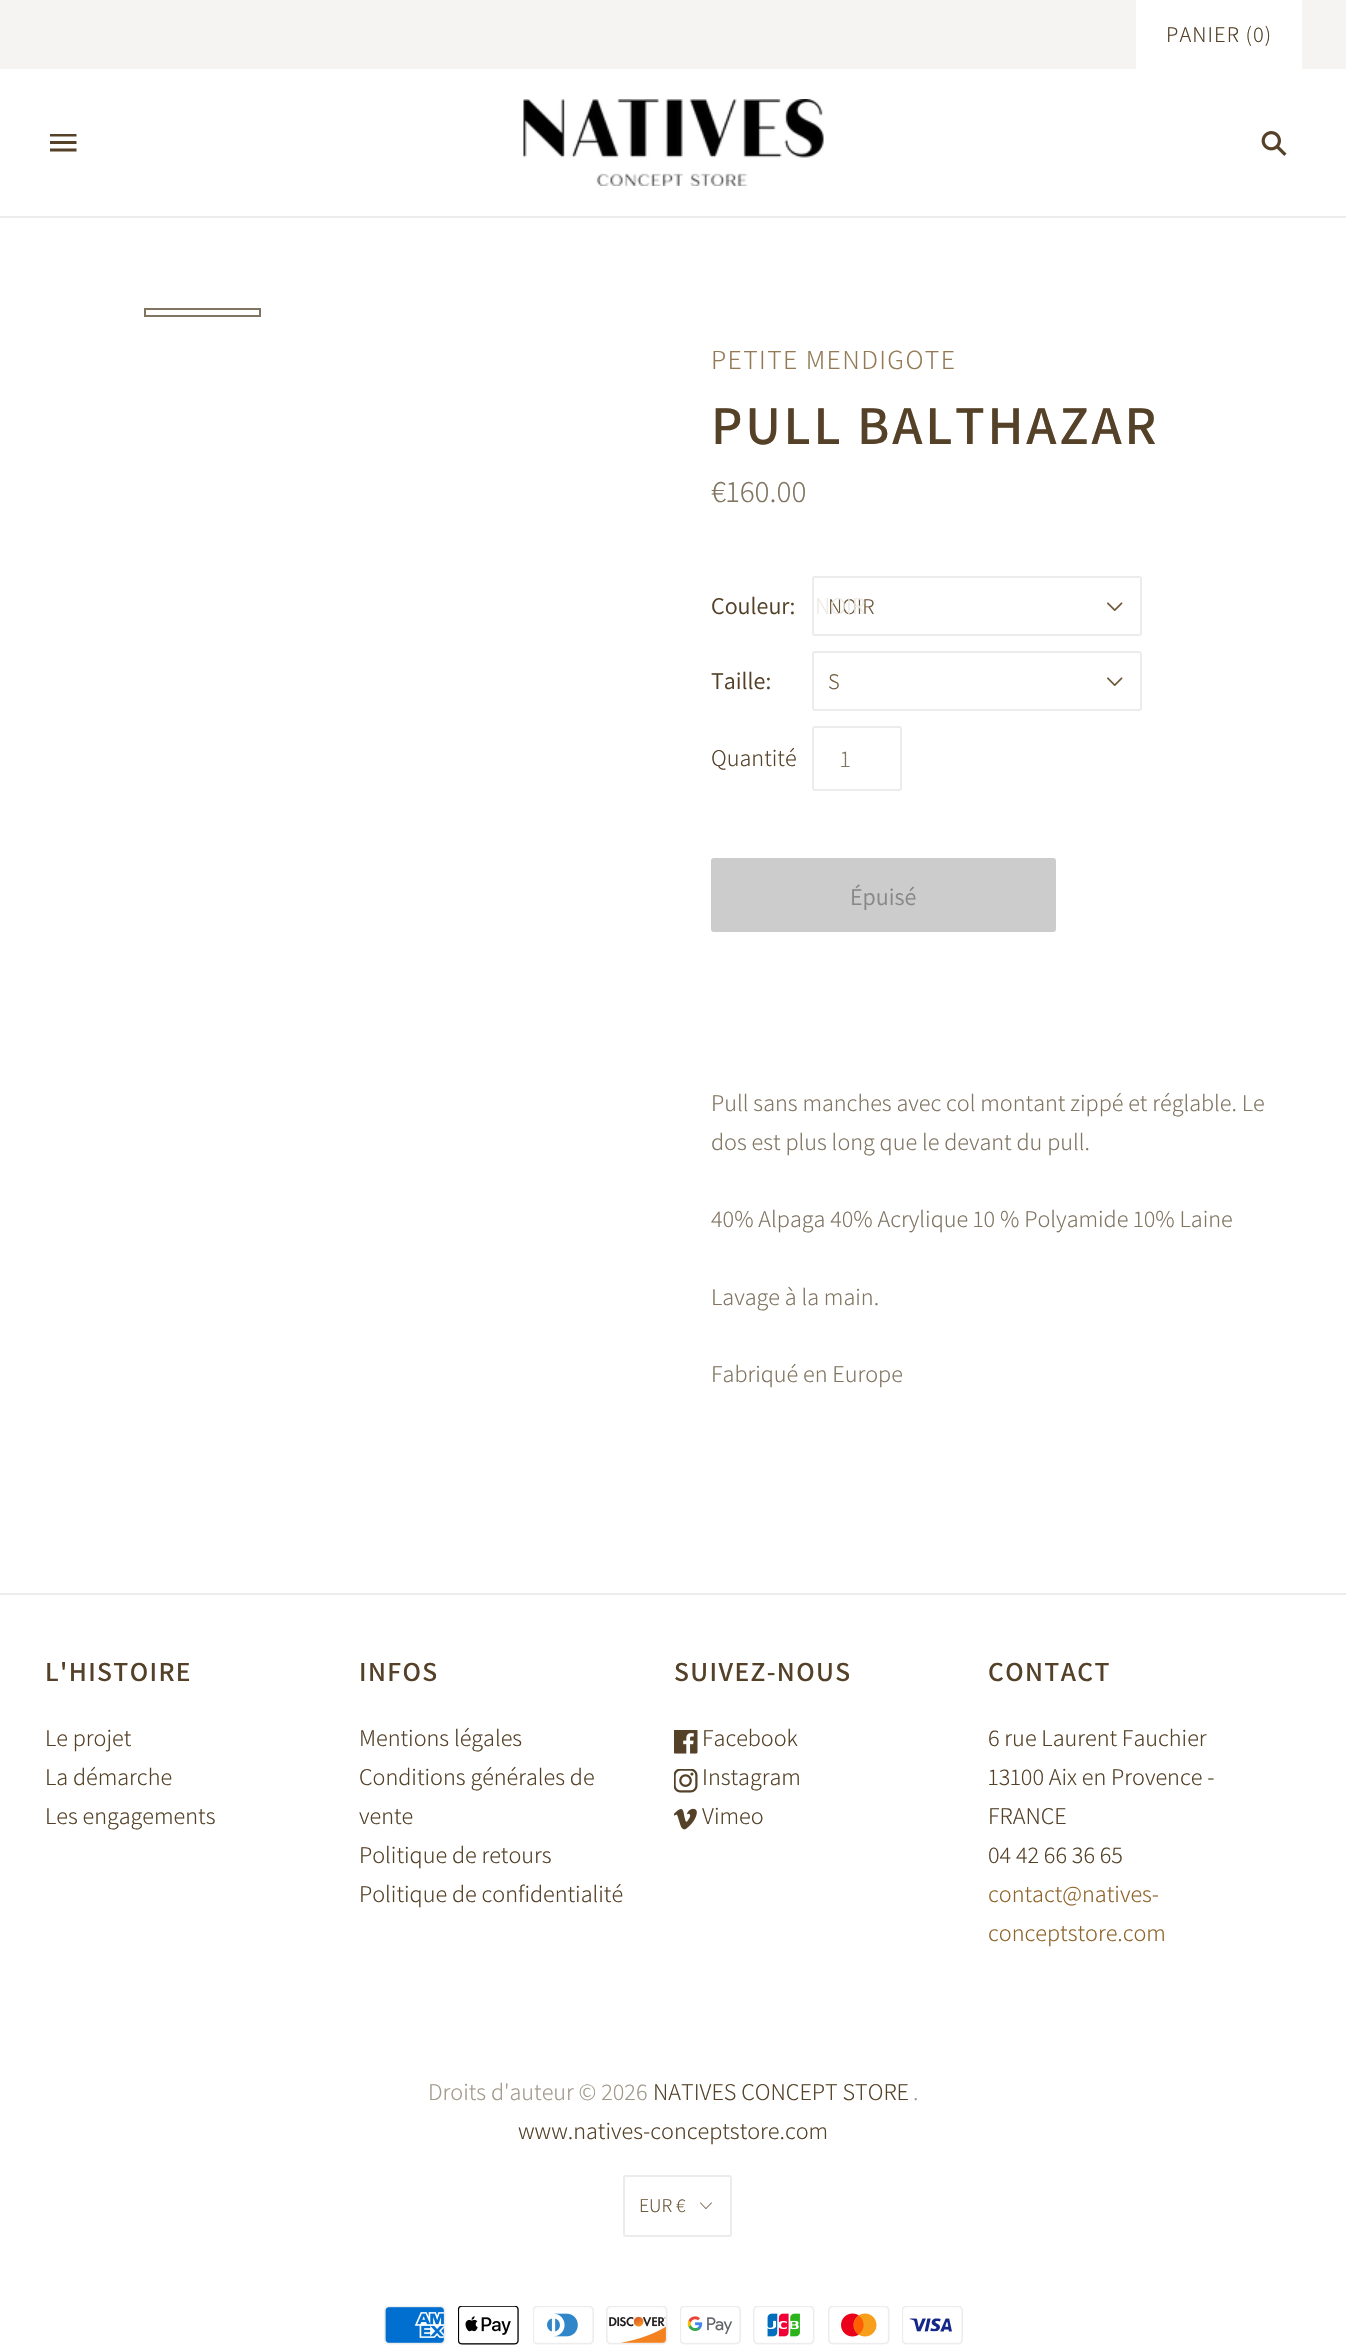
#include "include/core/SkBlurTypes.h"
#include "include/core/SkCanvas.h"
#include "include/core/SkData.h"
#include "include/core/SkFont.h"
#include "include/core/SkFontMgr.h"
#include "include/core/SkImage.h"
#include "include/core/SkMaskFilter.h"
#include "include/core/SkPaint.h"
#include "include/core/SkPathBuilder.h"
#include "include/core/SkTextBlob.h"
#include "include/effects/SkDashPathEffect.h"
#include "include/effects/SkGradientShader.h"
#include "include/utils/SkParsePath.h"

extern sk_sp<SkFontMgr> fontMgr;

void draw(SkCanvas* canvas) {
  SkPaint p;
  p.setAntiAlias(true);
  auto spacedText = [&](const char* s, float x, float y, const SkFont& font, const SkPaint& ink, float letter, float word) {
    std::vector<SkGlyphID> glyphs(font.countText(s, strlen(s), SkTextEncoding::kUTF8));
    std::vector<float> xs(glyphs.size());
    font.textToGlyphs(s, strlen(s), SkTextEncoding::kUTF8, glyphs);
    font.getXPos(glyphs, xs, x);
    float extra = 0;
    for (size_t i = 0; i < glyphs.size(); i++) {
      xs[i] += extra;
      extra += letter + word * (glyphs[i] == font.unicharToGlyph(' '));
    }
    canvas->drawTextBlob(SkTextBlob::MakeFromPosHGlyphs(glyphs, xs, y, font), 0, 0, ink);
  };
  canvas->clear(SK_ColorWHITE);
  p.setColor(SkColorSetRGB(237, 236, 234));
  canvas->drawRect(SkRect::MakeLTRB(0, 216, 1346, 218), p);
  p.setColor(SkColorSetRGB(245, 244, 242));
  canvas->drawRect(SkRect::MakeLTRB(0, 0, 1346, 69), p);
  p.setColor(SK_ColorWHITE);
  canvas->drawRect(SkRect::MakeLTRB(1136, 0, 1302, 69), p);
  canvas->drawImageRect(SkImages::DeferredFromEncodedData(SkData::MakeFromFileName("images/1.png")), SkRect::MakeLTRB(50, 134, 77, 152), SkSamplingOptions());
  canvas->drawImageRect(SkImages::DeferredFromEncodedData(SkData::MakeFromFileName("images/2.png")), SkRect::MakeLTRB(523, 99, 824, 186), SkSamplingOptions());
  canvas->drawImageRect(SkImages::DeferredFromEncodedData(SkData::MakeFromFileName("images/3.png")), SkRect::MakeLTRB(1261, 131, 1287, 156), SkSamplingOptions());
  p.setStyle(SkPaint::kStroke_Style);
  p.setStrokeWidth(2);
  p.setColor(SkColorSetRGB(129, 117, 98));
  canvas->drawRect(SkRect::MakeLTRB(145, 309, 260, 316), p);
  p.setColor(SkColorSetRGB(237, 236, 234));
  canvas->drawRoundRect(SkRect::MakeLTRB(813, 577, 1141, 635), 2, 2, p);
  canvas->drawImageRect(SkImages::DeferredFromEncodedData(SkData::MakeFromFileName("images/4.png")), SkRect::MakeLTRB(1107, 602, 1123, 611), SkSamplingOptions());
  canvas->drawRoundRect(SkRect::MakeLTRB(813, 652, 1141, 710), 2, 2, p);
  canvas->drawImageRect(SkImages::DeferredFromEncodedData(SkData::MakeFromFileName("images/4.png")), SkRect::MakeLTRB(1107, 677, 1123, 686), SkSamplingOptions());
  canvas->drawRoundRect(SkRect::MakeLTRB(813, 727, 901, 790), 2, 2, p);
  p.setStyle(SkPaint::kFill_Style);
  p.setColor(SkColorSetRGB(204, 204, 204));
  canvas->drawRoundRect(SkRect::MakeLTRB(711, 858, 1056, 932), 3, 3, p);
  p.setColor(SkColorSetRGB(237, 236, 234));
  canvas->drawRect(SkRect::MakeLTRB(0, 1593, 1346, 1595), p);
  canvas->drawImageRect(SkImages::DeferredFromEncodedData(SkData::MakeFromFileName("images/5.png")), SkRect::MakeLTRB(674, 1730, 698, 1754), SkSamplingOptions());
  canvas->drawImageRect(SkImages::DeferredFromEncodedData(SkData::MakeFromFileName("images/6.png")), SkRect::MakeLTRB(674, 1769, 698, 1793), SkSamplingOptions());
  canvas->drawImageRect(SkImages::DeferredFromEncodedData(SkData::MakeFromFileName("images/7.png")), SkRect::MakeLTRB(674, 1808, 697, 1830), SkSamplingOptions());
  p.setStyle(SkPaint::kStroke_Style);
  canvas->drawRoundRect(SkRect::MakeLTRB(624, 2176, 731, 2236), 2, 2, p);
  canvas->drawImageRect(SkImages::DeferredFromEncodedData(SkData::MakeFromFileName("images/8.png")), SkRect::MakeLTRB(700, 2202, 712, 2210), SkSamplingOptions());
  canvas->drawImageRect(SkImages::DeferredFromEncodedData(SkData::MakeFromFileName("images/9.png")), SkRect::MakeLTRB(384, 2306, 446, 2345), SkSamplingOptions());
  canvas->drawImageRect(SkImages::DeferredFromEncodedData(SkData::MakeFromFileName("images/10.png")), SkRect::MakeLTRB(458, 2306, 519, 2345), SkSamplingOptions());
  canvas->drawImageRect(SkImages::DeferredFromEncodedData(SkData::MakeFromFileName("images/11.png")), SkRect::MakeLTRB(533, 2306, 594, 2345), SkSamplingOptions());
  canvas->drawImageRect(SkImages::DeferredFromEncodedData(SkData::MakeFromFileName("images/12.png")), SkRect::MakeLTRB(606, 2306, 668, 2345), SkSamplingOptions());
  canvas->drawImageRect(SkImages::DeferredFromEncodedData(SkData::MakeFromFileName("images/13.png")), SkRect::MakeLTRB(680, 2306, 741, 2345), SkSamplingOptions());
  canvas->drawImageRect(SkImages::DeferredFromEncodedData(SkData::MakeFromFileName("images/14.png")), SkRect::MakeLTRB(753, 2306, 815, 2345), SkSamplingOptions());
  canvas->drawImageRect(SkImages::DeferredFromEncodedData(SkData::MakeFromFileName("images/15.png")), SkRect::MakeLTRB(828, 2306, 890, 2345), SkSamplingOptions());
  canvas->drawImageRect(SkImages::DeferredFromEncodedData(SkData::MakeFromFileName("images/16.png")), SkRect::MakeLTRB(902, 2306, 963, 2345), SkSamplingOptions());
  SkFont font1(fontMgr->matchFamilyStyle("Assistant", SkFontStyle(300, SkFontStyle::kNormal_Width, SkFontStyle::kUpright_Slant)), 22.25f);
  font1.setSubpixel(true);
  p.setStyle(SkPaint::kFill_Style);
  p.setColor(SkColorSetRGB(84, 65, 40));
  spacedText("PANIER (0)", 1166, 42, font1, p, 1.1f, 0);
  SkFont font2(fontMgr->matchFamilyStyle("Assistant", SkFontStyle(300, SkFontStyle::kNormal_Width, SkFontStyle::kUpright_Slant)), 27.5f);
  font2.setSubpixel(true);
  p.setColor(SkColorSetRGB(147, 122, 84));
  spacedText("PETITE MENDIGOTE", 711, 369, font2, p, 1.4f, 0);
  SkFont font3(fontMgr->matchFamilyStyle("Assistant", SkFontStyle(600, SkFontStyle::kNormal_Width, SkFontStyle::kUpright_Slant)), 54.75f);
  font3.setSubpixel(true);
  p.setColor(SkColorSetRGB(84, 65, 40));
  spacedText("PULL BALTHAZAR", 711, 444, font3, p, 2.75f, 0);
  SkFont font4(fontMgr->matchFamilyStyle("Assistant", SkFontStyle(300, SkFontStyle::kNormal_Width, SkFontStyle::kUpright_Slant)), 31);
  font4.setSubpixel(true);
  p.setColor(SkColorSetRGB(129, 117, 98));
  canvas->drawString("€160.00", 711, 502, font4, p);
  SkFont font5(fontMgr->matchFamilyStyle("Assistant", SkFontStyle::Normal()), 24);
  font5.setSubpixel(true);
  p.setColor(SkColorSetRGB(84, 65, 40));
  canvas->drawString("Couleur:", 711, 614, font5, p);
  p.setColor(SkColorSetRGB(109, 88, 60));
  canvas->drawString("NOIR", 828, 614, font1, p);
  SkFont font6(fontMgr->matchFamilyStyle("Assistant", SkFontStyle(300, SkFontStyle::kNormal_Width, SkFontStyle::kUpright_Slant)), 24);
  font6.setSubpixel(true);
  p.setColor(SkColorSetRGB(237, 235, 231));
  canvas->drawString("NOIR", 815, 614, font6, p);
  p.setColor(SkColorSetRGB(84, 65, 40));
  canvas->drawString("Taille:", 711, 689, font5, p);
  p.setColor(SkColorSetRGB(109, 88, 60));
  canvas->drawString("S", 828, 689, font1, p);
  p.setColor(SkColorSetRGB(84, 65, 40));
  canvas->drawString("Quantité", 711, 766, font6, p);
  p.setColor(SkColorSetRGB(129, 117, 98));
  canvas->drawString("1", 840, 767, font6, p);
  p.setColor(SkColorSetRGB(136, 136, 136));
  canvas->drawString("Épuisé", 850, 905, font5, p);
  p.setColor(SkColorSetRGB(129, 117, 98));
  canvas->drawString("Pull sans manches avec col montant zippé et réglable. Le", 711, 1111, font6, p);
  canvas->drawString("dos est plus long que le devant du pull.", 711, 1150, font6, p);
  canvas->drawString("40% Alpaga 40% Acrylique 10 % Polyamide 10% Laine", 711, 1227, font6, p);
  canvas->drawString("Lavage à la main.", 711, 1305, font6, p);
  canvas->drawString("Fabriqué en Europe", 711, 1382, font6, p);
  SkFont font7(fontMgr->matchFamilyStyle("Assistant", SkFontStyle(600, SkFontStyle::kNormal_Width, SkFontStyle::kUpright_Slant)), 27.5f);
  font7.setSubpixel(true);
  p.setColor(SkColorSetRGB(84, 65, 40));
  spacedText("L'HISTOIRE", 45, 1681, font7, p, 1.4f, 0);
  canvas->drawString("Le projet", 45, 1746, font6, p);
  canvas->drawString("La démarche", 45, 1785, font6, p);
  canvas->drawString("Les engagements", 45, 1824, font6, p);
  spacedText("INFOS", 359, 1681, font7, p, 1.4f, 0);
  canvas->drawString("Mentions légales", 359, 1746, font6, p);
  canvas->drawString("Conditions générales de", 359, 1785, font6, p);
  canvas->drawString("vente", 359, 1824, font6, p);
  canvas->drawString("Politique de retours", 359, 1863, font6, p);
  canvas->drawString("Politique de confidentialité", 359, 1902, font6, p);
  spacedText("SUIVEZ-NOUS", 674, 1681, font7, p, 1.4f, 0);
  canvas->drawString("Facebook", 702, 1746, font6, p);
  canvas->drawString("Instagram", 702, 1785, font6, p);
  canvas->drawString("Vimeo", 702, 1824, font6, p);
  spacedText("CONTACT", 988, 1681, font7, p, 1.4f, 0);
  canvas->drawString("6 rue Laurent Fauchier", 988, 1746, font6, p);
  canvas->drawString("13100 Aix en Provence -", 988, 1785, font6, p);
  canvas->drawString("FRANCE", 988, 1824, font6, p);
  canvas->drawString("04 42 66 36 65", 988, 1863, font6, p);
  p.setColor(SkColorSetRGB(142, 100, 41));
  canvas->drawString("contact@natives-", 988, 1902, font6, p);
  canvas->drawString("conceptstore.com", 988, 1941, font6, p);
  p.setColor(SkColorSetRGB(161, 152, 137));
  canvas->drawString("Droits d'auteur © 2026", 428, 2100, font6, p);
  p.setColor(SkColorSetRGB(84, 65, 40));
  canvas->drawString("NATIVES CONCEPT STORE", 653, 2100, font6, p);
  p.setColor(SkColorSetRGB(161, 152, 137));
  canvas->drawString(".", 913, 2100, font6, p);
  p.setColor(SkColorSetRGB(84, 65, 40));
  canvas->drawString("www.natives-conceptstore.com", 518, 2139, font6, p);
  SkFont font8(fontMgr->matchFamilyStyle("Assistant", SkFontStyle(300, SkFontStyle::kNormal_Width, SkFontStyle::kUpright_Slant)), 19.5f);
  font8.setSubpixel(true);
  p.setColor(SkColorSetRGB(109, 88, 60));
  canvas->drawString("EUR €", 639, 2212, font8, p);
}
